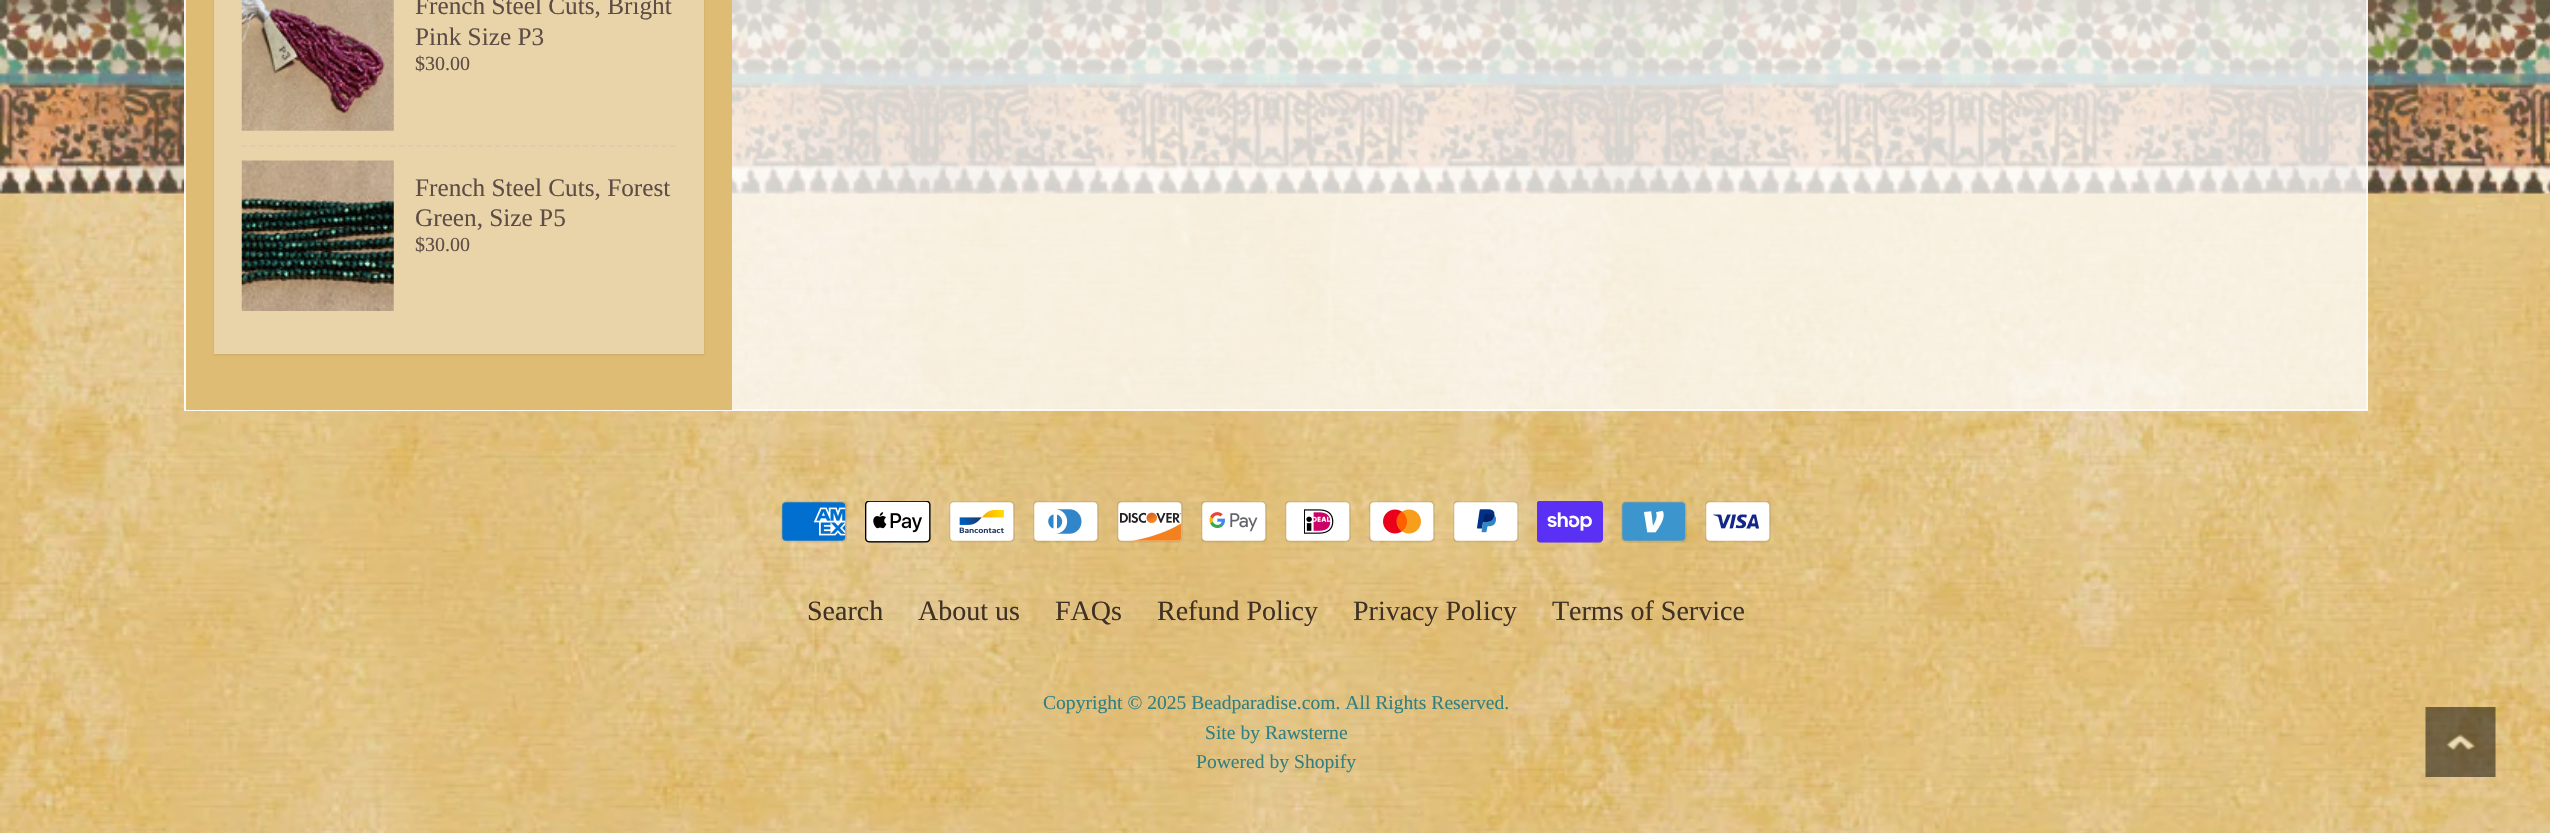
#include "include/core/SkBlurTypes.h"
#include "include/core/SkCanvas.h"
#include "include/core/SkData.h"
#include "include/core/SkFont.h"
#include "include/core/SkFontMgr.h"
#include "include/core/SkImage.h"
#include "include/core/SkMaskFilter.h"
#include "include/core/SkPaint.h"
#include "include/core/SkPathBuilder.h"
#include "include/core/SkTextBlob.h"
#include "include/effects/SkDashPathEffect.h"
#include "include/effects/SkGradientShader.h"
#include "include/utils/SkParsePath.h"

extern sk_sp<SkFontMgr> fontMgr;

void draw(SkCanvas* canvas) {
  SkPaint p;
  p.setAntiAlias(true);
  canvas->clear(SK_ColorWHITE);
  canvas->drawImageRect(SkImages::DeferredFromEncodedData(SkData::MakeFromFileName("images/1.png")), SkRect::MakeLTRB(0, 0, 2550, 833), SkSamplingOptions());
  p.setColor(SkColorSetARGB(191, 255, 255, 255));
  canvas->drawRect(SkRect::MakeLTRB(184, 0, 2368, 411), p);
  p.setStyle(SkPaint::kStroke_Style);
  p.setStrokeWidth(2);
  p.setColor(SkColorSetARGB(179, 255, 255, 255));
  canvas->drawRect(SkRect::MakeLTRB(185, -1, 2367, 410), p);
  p.setStyle(SkPaint::kFill_Style);
  p.setColor(SkColorSetRGB(223, 188, 115));
  canvas->drawRect(SkRect::MakeLTRB(186, 0, 732, 410), p);
  p.setColor(SkColorSetARGB(26, 0, 0, 0));
  p.setMaskFilter(SkMaskFilter::MakeBlur(kNormal_SkBlurStyle, 1));
  canvas->drawRect(SkRect::MakeLTRB(214, -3, 704, 355), p);
  p.setMaskFilter(nullptr);
  p.setColor(SkColorSetRGB(232, 212, 168));
  canvas->drawRect(SkRect::MakeLTRB(214, 0, 704, 354), p);
  canvas->drawImageRect(SkImages::DeferredFromEncodedData(SkData::MakeFromFileName("images/2.png")), SkRect::MakeLTRB(241, 0, 394, 131), SkSamplingOptions());
  p.setStyle(SkPaint::kStroke_Style);
  p.setStrokeWidth(1.8f);
  p.setColor(SkColorSetRGB(222, 204, 178));
  p.setPathEffect(SkDashPathEffect::Make({{5.25f, 3.5f}}, 0));
  canvas->drawPath(SkPathBuilder().moveTo(241.5f, 146).lineTo(675.5f, 146).detach(), p);
  p.setPathEffect(nullptr);
  canvas->drawImageRect(SkImages::DeferredFromEncodedData(SkData::MakeFromFileName("images/3.png")), SkRect::MakeLTRB(241, 160, 394, 311), SkSamplingOptions());
  canvas->drawImageRect(SkImages::DeferredFromEncodedData(SkData::MakeFromFileName("images/4.png")), SkRect::MakeLTRB(781, 501, 847, 543), SkSamplingOptions());
  canvas->drawImageRect(SkImages::DeferredFromEncodedData(SkData::MakeFromFileName("images/5.png")), SkRect::MakeLTRB(865, 501, 931, 543), SkSamplingOptions());
  canvas->drawImageRect(SkImages::DeferredFromEncodedData(SkData::MakeFromFileName("images/6.png")), SkRect::MakeLTRB(949, 501, 1015, 543), SkSamplingOptions());
  canvas->drawImageRect(SkImages::DeferredFromEncodedData(SkData::MakeFromFileName("images/7.png")), SkRect::MakeLTRB(1033, 501, 1099, 543), SkSamplingOptions());
  canvas->drawImageRect(SkImages::DeferredFromEncodedData(SkData::MakeFromFileName("images/8.png")), SkRect::MakeLTRB(1117, 501, 1183, 543), SkSamplingOptions());
  canvas->drawImageRect(SkImages::DeferredFromEncodedData(SkData::MakeFromFileName("images/9.png")), SkRect::MakeLTRB(1201, 501, 1267, 543), SkSamplingOptions());
  canvas->drawImageRect(SkImages::DeferredFromEncodedData(SkData::MakeFromFileName("images/10.png")), SkRect::MakeLTRB(1285, 501, 1351, 543), SkSamplingOptions());
  canvas->drawImageRect(SkImages::DeferredFromEncodedData(SkData::MakeFromFileName("images/11.png")), SkRect::MakeLTRB(1369, 501, 1435, 543), SkSamplingOptions());
  canvas->drawImageRect(SkImages::DeferredFromEncodedData(SkData::MakeFromFileName("images/12.png")), SkRect::MakeLTRB(1453, 501, 1519, 543), SkSamplingOptions());
  canvas->drawImageRect(SkImages::DeferredFromEncodedData(SkData::MakeFromFileName("images/13.png")), SkRect::MakeLTRB(1537, 501, 1603, 543), SkSamplingOptions());
  canvas->drawImageRect(SkImages::DeferredFromEncodedData(SkData::MakeFromFileName("images/14.png")), SkRect::MakeLTRB(1621, 501, 1687, 543), SkSamplingOptions());
  canvas->drawImageRect(SkImages::DeferredFromEncodedData(SkData::MakeFromFileName("images/15.png")), SkRect::MakeLTRB(1705, 501, 1771, 543), SkSamplingOptions());
  canvas->drawImageRect(SkImages::DeferredFromEncodedData(SkData::MakeFromFileName("images/16.png")), SkRect::MakeLTRB(2425, 707, 2496, 777), SkSamplingOptions());
  SkFont font1(fontMgr->matchFamilyStyle("Liberation Serif", SkFontStyle::Normal()), 25.25f);
  font1.setSubpixel(true);
  p.setStyle(SkPaint::kFill_Style);
  p.setColor(SkColorSetRGB(94, 76, 70));
  canvas->drawString("French Steel Cuts, Bright", 415, 14, font1, p);
  canvas->drawString("Pink Size P3", 415, 45, font1, p);
  SkFont font2(fontMgr->matchFamilyStyle("Liberation Serif", SkFontStyle::Normal()), 20);
  font2.setSubpixel(true);
  canvas->drawString("$30.00", 415, 70, font2, p);
  canvas->drawString("French Steel Cuts, Forest", 415, 196, font1, p);
  canvas->drawString("Green, Size P5", 415, 226, font1, p);
  canvas->drawString("$30.00", 415, 251, font2, p);
  SkFont font3(fontMgr->matchFamilyStyle("Liberation Serif", SkFontStyle::Normal()), 28);
  font3.setSubpixel(true);
  p.setColor(SkColorSetRGB(64, 49, 37));
  canvas->drawString("Search", 807, 620, font3, p);
  canvas->drawString("About us", 918, 620, font3, p);
  canvas->drawString("FAQs", 1055, 620, font3, p);
  canvas->drawString("Refund Policy", 1157, 620, font3, p);
  canvas->drawString("Privacy Policy", 1353, 620, font3, p);
  canvas->drawString("Terms of Service", 1552, 620, font3, p);
  SkFont font4(fontMgr->matchFamilyStyle("Liberation Serif", SkFontStyle::Normal()), 19.6f);
  font4.setSubpixel(true);
  p.setColor(SkColorSetRGB(48, 127, 129));
  canvas->drawString("Copyright © 2025 Beadparadise.com. All Rights Reserved.", 1043, 709, font4, p);
  canvas->drawString("Site by Rawsterne", 1205, 739, font4, p);
  canvas->drawString("Powered by Shopify", 1196, 768, font4, p);
}
